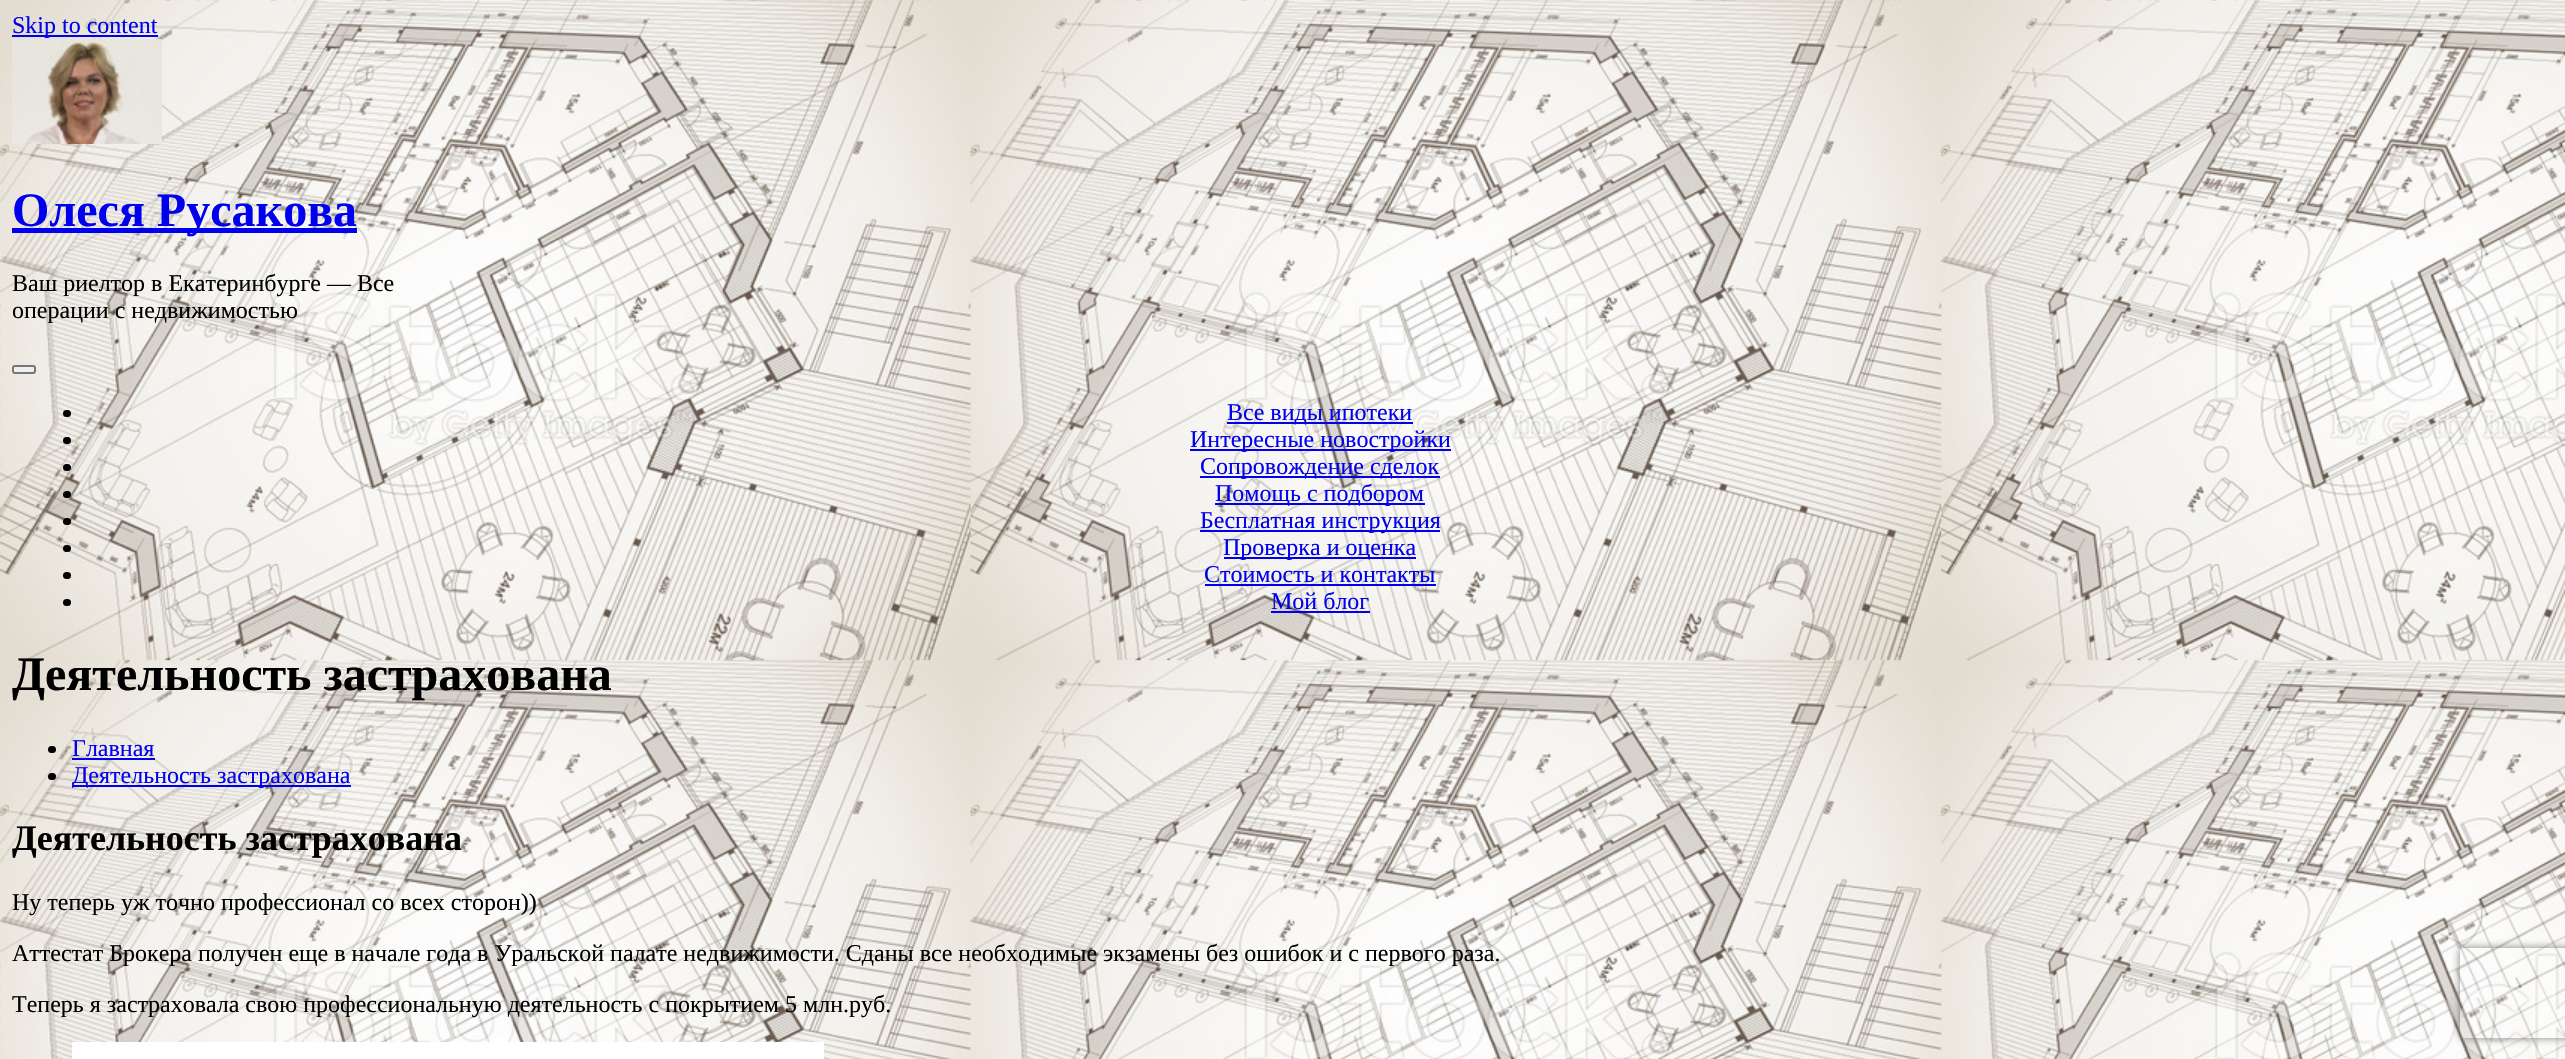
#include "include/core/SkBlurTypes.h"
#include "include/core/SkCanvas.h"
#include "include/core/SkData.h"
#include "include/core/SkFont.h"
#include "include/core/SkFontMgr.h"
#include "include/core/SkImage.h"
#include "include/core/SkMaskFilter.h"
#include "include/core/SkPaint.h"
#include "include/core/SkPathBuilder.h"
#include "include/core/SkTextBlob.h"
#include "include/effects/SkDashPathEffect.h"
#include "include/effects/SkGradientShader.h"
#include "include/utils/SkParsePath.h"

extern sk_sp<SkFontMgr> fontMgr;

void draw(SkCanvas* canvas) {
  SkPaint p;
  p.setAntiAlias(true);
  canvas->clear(SK_ColorWHITE);
  canvas->drawImageRect(SkImages::DeferredFromEncodedData(SkData::MakeFromFileName("images/1.png")), SkRect::MakeLTRB(0, 0, 2565, 1059), SkSamplingOptions());
  p.setColor(SkColorSetRGB(0, 0, 238));
  canvas->drawRect(SkRect::MakeLTRB(12, 35, 158, 37), p);
  canvas->drawImageRect(SkImages::DeferredFromEncodedData(SkData::MakeFromFileName("images/2.png")), SkRect::MakeLTRB(12, 39, 162, 144), SkSamplingOptions());
  canvas->drawRect(SkRect::MakeLTRB(12, 228, 357, 233), p);
  p.setColor(SkColorSetRGB(239, 239, 239));
  canvas->drawRoundRect(SkRect::MakeLTRB(13, 366, 35, 373), 2, 2, p);
  p.setStyle(SkPaint::kStroke_Style);
  p.setStrokeWidth(2);
  p.setColor(SkColorSetRGB(118, 118, 118));
  canvas->drawRoundRect(SkRect::MakeLTRB(13, 366, 35, 373), 2, 2, p);
  p.setStyle(SkPaint::kFill_Style);
  p.setColor(SK_ColorBLACK);
  canvas->drawRoundRect(SkRect::MakeLTRB(63, 410, 71, 417), 3.5f, 3.5f, p);
  p.setColor(SkColorSetRGB(0, 0, 238));
  canvas->drawRect(SkRect::MakeLTRB(1227, 422, 1413, 424), p);
  p.setColor(SK_ColorBLACK);
  canvas->drawRoundRect(SkRect::MakeLTRB(63, 437, 71, 444), 3.5f, 3.5f, p);
  p.setColor(SkColorSetRGB(0, 0, 238));
  canvas->drawRect(SkRect::MakeLTRB(1190, 449, 1451, 451), p);
  p.setColor(SK_ColorBLACK);
  canvas->drawRoundRect(SkRect::MakeLTRB(63, 464, 71, 471), 3.5f, 3.5f, p);
  p.setColor(SkColorSetRGB(0, 0, 238));
  canvas->drawRect(SkRect::MakeLTRB(1200, 476, 1440, 478), p);
  p.setColor(SK_ColorBLACK);
  canvas->drawRoundRect(SkRect::MakeLTRB(63, 491, 71, 498), 3.5f, 3.5f, p);
  p.setColor(SkColorSetRGB(0, 0, 238));
  canvas->drawRect(SkRect::MakeLTRB(1215, 503, 1425, 505), p);
  p.setColor(SK_ColorBLACK);
  canvas->drawRoundRect(SkRect::MakeLTRB(63, 518, 71, 525), 3.5f, 3.5f, p);
  p.setColor(SkColorSetRGB(0, 0, 238));
  canvas->drawRect(SkRect::MakeLTRB(1200, 530, 1440, 532), p);
  p.setColor(SK_ColorBLACK);
  canvas->drawRoundRect(SkRect::MakeLTRB(63, 545, 71, 552), 3.5f, 3.5f, p);
  p.setColor(SkColorSetRGB(0, 0, 238));
  canvas->drawRect(SkRect::MakeLTRB(1224, 557, 1416, 559), p);
  p.setColor(SK_ColorBLACK);
  canvas->drawRoundRect(SkRect::MakeLTRB(63, 572, 71, 579), 3.5f, 3.5f, p);
  p.setColor(SkColorSetRGB(0, 0, 238));
  canvas->drawRect(SkRect::MakeLTRB(1205, 584, 1436, 586), p);
  p.setColor(SK_ColorBLACK);
  canvas->drawRoundRect(SkRect::MakeLTRB(63, 599, 71, 606), 3.5f, 3.5f, p);
  p.setColor(SkColorSetRGB(0, 0, 238));
  canvas->drawRect(SkRect::MakeLTRB(1271, 611, 1370, 613), p);
  p.setColor(SK_ColorBLACK);
  canvas->drawRoundRect(SkRect::MakeLTRB(48, 746, 56, 753), 3.5f, 3.5f, p);
  p.setColor(SkColorSetRGB(0, 0, 238));
  canvas->drawRect(SkRect::MakeLTRB(72, 758, 155, 760), p);
  p.setColor(SK_ColorBLACK);
  canvas->drawRoundRect(SkRect::MakeLTRB(48, 773, 56, 780), 3.5f, 3.5f, p);
  p.setColor(SkColorSetRGB(0, 0, 238));
  canvas->drawRect(SkRect::MakeLTRB(72, 785, 351, 787), p);
  p.setColor(SK_ColorWHITE);
  canvas->drawRect(SkRect::MakeLTRB(72, 1042, 824, 1059), p);
  canvas->save();
  canvas->clipPath(SkPathBuilder(SkPathFillType::kEvenOdd).moveTo(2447, 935).lineTo(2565, 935).lineTo(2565, 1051).lineTo(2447, 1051).close().moveTo(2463, 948).lineTo(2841, 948).cubicTo(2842.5f, 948, 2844, 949.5f, 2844, 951).lineTo(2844, 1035).cubicTo(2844, 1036.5f, 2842.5f, 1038, 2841, 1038).lineTo(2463, 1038).cubicTo(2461.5f, 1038, 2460, 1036.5f, 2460, 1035).lineTo(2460, 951).cubicTo(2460, 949.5f, 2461.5f, 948, 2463, 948).close().detach(), true);
  p.setColor(SkColorSetRGB(128, 128, 128));
  p.setMaskFilter(SkMaskFilter::MakeBlur(kNormal_SkBlurStyle, 4));
  canvas->drawRoundRect(SkRect::MakeLTRB(2460, 948, 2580, 1038), 3, 3, p);
  p.setMaskFilter(nullptr);
  canvas->restore();
  SkFont font1(fontMgr->matchFamilyStyle("Liberation Serif", SkFontStyle::Normal()), 24);
  font1.setSubpixel(true);
  p.setColor(SkColorSetRGB(0, 0, 238));
  canvas->drawString("Skip to content", 12, 33, font1, p);
  SkFont font2(fontMgr->matchFamilyStyle("Liberation Serif", SkFontStyle::Bold()), 48);
  font2.setSubpixel(true);
  canvas->drawString("Олеся Русакова", 12, 226, font2, p);
  p.setColor(SK_ColorBLACK);
  canvas->drawString("Ваш риелтор в Екатеринбурге — Все", 12, 291, font1, p);
  canvas->drawString("операции с недвижимостью", 12, 318, font1, p);
  p.setColor(SkColorSetRGB(0, 0, 238));
  canvas->drawString("Все виды ипотеки", 1227, 420, font1, p);
  canvas->drawString("Интересные новостройки", 1190, 447, font1, p);
  canvas->drawString("Сопровождение сделок", 1200, 474, font1, p);
  canvas->drawString("Помощь с подбором", 1215, 501, font1, p);
  canvas->drawString("Бесплатная инструкция", 1200, 528, font1, p);
  canvas->drawString("Проверка и оценка", 1223, 555, font1, p);
  canvas->drawString("Стоимость и контакты", 1204, 582, font1, p);
  canvas->drawString("Мой блог", 1271, 609, font1, p);
  p.setColor(SK_ColorBLACK);
  canvas->drawString("Деятельность застрахована", 12, 690, font2, p);
  p.setColor(SkColorSetRGB(0, 0, 238));
  canvas->drawString("Главная", 72, 756, font1, p);
  canvas->drawString("Деятельность застрахована", 72, 783, font1, p);
  SkFont font3(fontMgr->matchFamilyStyle("Liberation Serif", SkFontStyle::Bold()), 36);
  font3.setSubpixel(true);
  p.setColor(SK_ColorBLACK);
  canvas->drawString("Деятельность застрахована", 12, 850, font3, p);
  canvas->drawString("Ну теперь уж точно профессионал со всех сторон))", 12, 910, font1, p);
  canvas->drawString("Аттестат Брокера получен еще в начале года в Уральской палате недвижимости. Сданы все необходимые экзамены без ошибок и с первого раза.", 12, 961, font1, p);
  canvas->drawString("Теперь я застраховала свою профессиональную деятельность с покрытием 5 млн.руб.", 12, 1012, font1, p);
}
